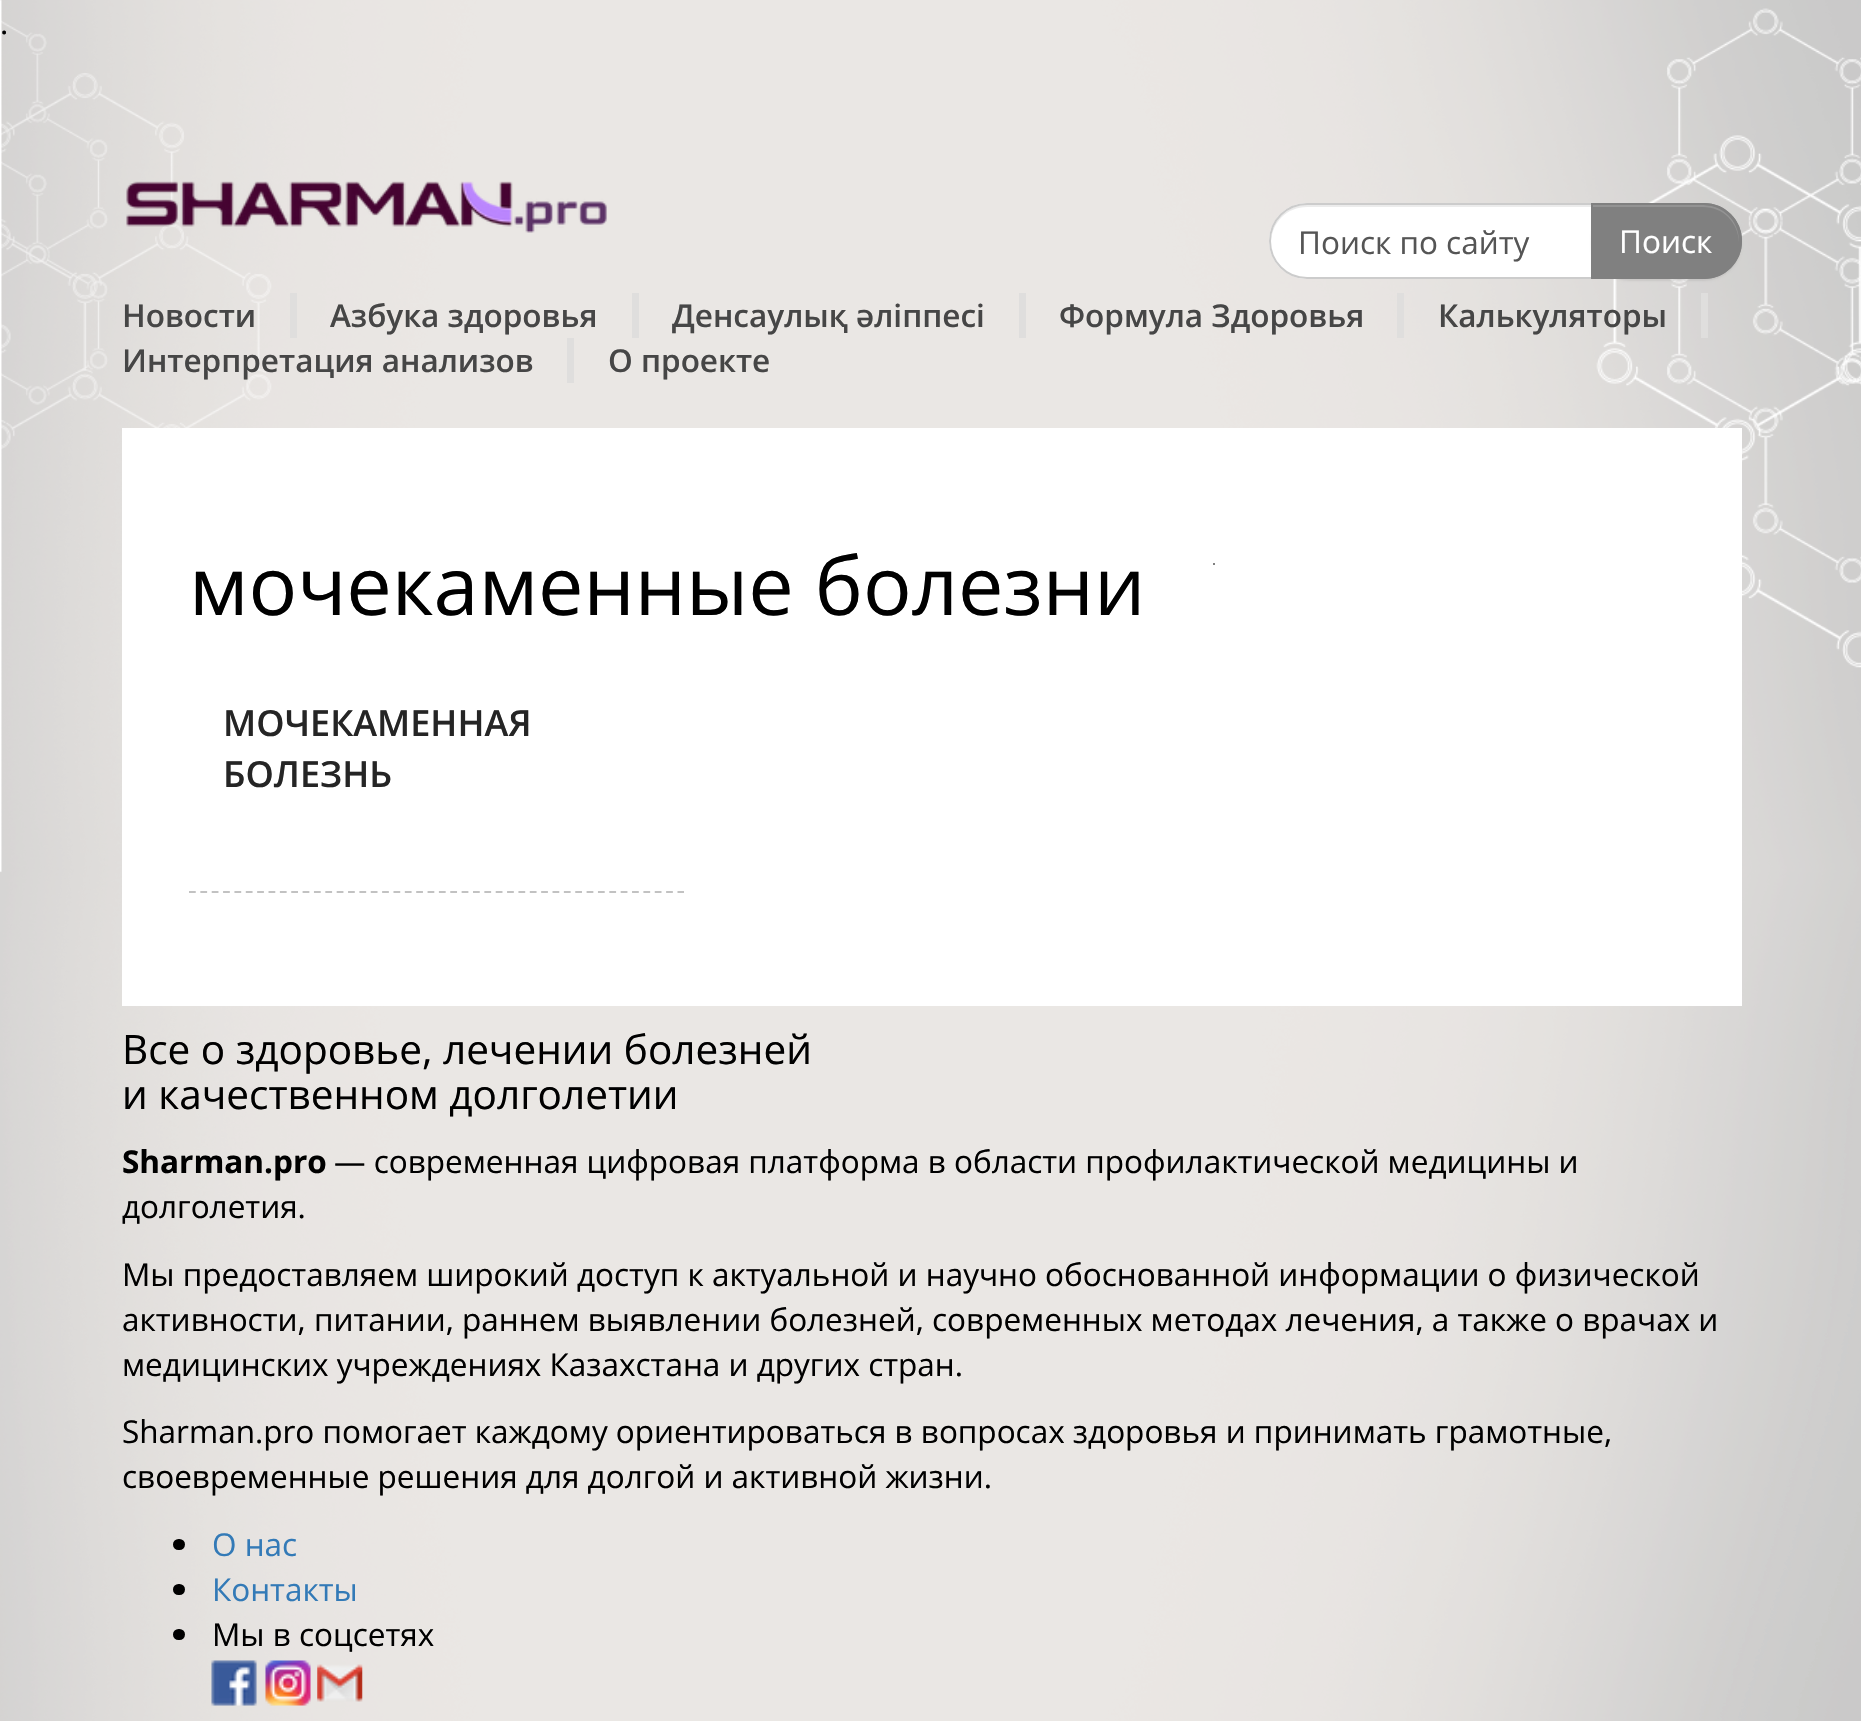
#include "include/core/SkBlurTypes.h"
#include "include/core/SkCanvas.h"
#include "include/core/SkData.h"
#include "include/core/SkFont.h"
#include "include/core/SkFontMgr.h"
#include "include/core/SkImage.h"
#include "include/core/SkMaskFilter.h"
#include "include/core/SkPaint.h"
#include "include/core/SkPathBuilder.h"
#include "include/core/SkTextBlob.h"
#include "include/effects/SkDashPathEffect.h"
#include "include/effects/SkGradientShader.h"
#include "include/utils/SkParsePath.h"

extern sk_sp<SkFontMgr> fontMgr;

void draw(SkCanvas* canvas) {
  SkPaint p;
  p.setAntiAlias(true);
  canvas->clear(SK_ColorWHITE);
  canvas->drawImageRect(SkImages::DeferredFromEncodedData(SkData::MakeFromFileName("images/1.png")), SkRect::MakeLTRB(0, 0, 1861, 1721), SkSamplingOptions());
  canvas->drawImageRect(SkImages::DeferredFromEncodedData(SkData::MakeFromFileName("images/2.png")), SkRect::MakeLTRB(126, 181, 607, 233), SkSamplingOptions());
  p.setColor(SK_ColorWHITE);
  canvas->drawPath(SkPathBuilder().moveTo(1307, 203).lineTo(1593, 203).lineTo(1593, 279).lineTo(1307, 279).cubicTo(1286, 279, 1269, 262, 1269, 241).cubicTo(1269, 220, 1286, 203, 1307, 203).close().detach(), p);
  p.setColor(SkColorSetRGB(236, 236, 236));
  canvas->drawPath(SkPathBuilder().moveTo(1307, 207).lineTo(1591, 207).lineTo(1591, 205).lineTo(1307, 205).cubicTo(1287, 205, 1271, 221, 1271, 241).lineTo(1271, 242).cubicTo(1272, 222, 1287, 207, 1307, 207).close().detach(), p);
  p.setStyle(SkPaint::kStroke_Style);
  p.setStrokeWidth(2);
  p.setColor(SkColorSetRGB(204, 204, 204));
  canvas->drawPath(SkPathBuilder().moveTo(1307, 204).lineTo(1592, 204).lineTo(1592, 278).lineTo(1307, 278).cubicTo(1286.5f, 278, 1270, 261.5f, 1270, 241).cubicTo(1270, 220.5f, 1286.5f, 204, 1307, 204).close().detach(), p);
  p.setStyle(SkPaint::kFill_Style);
  p.setColor(SkColorSetARGB(18, 0, 0, 0));
  p.setMaskFilter(SkMaskFilter::MakeBlur(kNormal_SkBlurStyle, 1));
  canvas->drawRoundRect(SkRect::MakeLTRB(1591, 205, 1742, 281), 38, 38, p);
  p.setMaskFilter(nullptr);
  p.setColor(SkColorSetRGB(128, 128, 128));
  canvas->drawPath(SkPathBuilder().moveTo(1591, 203).lineTo(1704, 203).cubicTo(1725, 203, 1742, 220, 1742, 241).cubicTo(1742, 262, 1725, 279, 1704, 279).lineTo(1591, 279).close().detach(), p);
  p.setColor(SkColorSetRGB(147, 147, 147));
  canvas->drawPath(SkPathBuilder().moveTo(1593, 207).lineTo(1703, 207).cubicTo(1723, 207, 1738, 222, 1739, 242).lineTo(1739, 241).cubicTo(1739, 221, 1723, 205, 1703, 205).lineTo(1593, 205).close().detach(), p);
  p.setStyle(SkPaint::kStroke_Style);
  p.setColor(SkColorSetRGB(128, 128, 128));
  canvas->drawPath(SkPathBuilder().moveTo(1592, 204).lineTo(1704, 204).cubicTo(1724.5f, 204, 1741, 220.5f, 1741, 241).cubicTo(1741, 261.5f, 1724.5f, 278, 1704, 278).lineTo(1592, 278).close().detach(), p);
  p.setStyle(SkPaint::kFill_Style);
  p.setColor(SkColorSetRGB(223, 222, 221));
  canvas->drawRect(SkRect::MakeLTRB(290, 293, 297, 338), p);
  canvas->drawRect(SkRect::MakeLTRB(632, 293, 639, 338), p);
  canvas->drawRect(SkRect::MakeLTRB(1019, 293, 1026, 338), p);
  canvas->drawRect(SkRect::MakeLTRB(1397, 293, 1404, 338), p);
  canvas->drawRect(SkRect::MakeLTRB(1701, 293, 1708, 338), p);
  canvas->drawRect(SkRect::MakeLTRB(567, 338, 574, 383), p);
  p.setColor(SK_ColorWHITE);
  canvas->drawRect(SkRect::MakeLTRB(122, 428, 1742, 1006), p);
  p.setStyle(SkPaint::kStroke_Style);
  p.setStrokeWidth(2.2f);
  p.setColor(SkColorSetRGB(194, 194, 194));
  p.setPathEffect(SkDashPathEffect::Make({{6.75f, 4.61f}}, 0));
  canvas->drawPath(SkPathBuilder().moveTo(189, 892).lineTo(684, 892).detach(), p);
  p.setPathEffect(nullptr);
  p.setStyle(SkPaint::kFill_Style);
  p.setColor(SkColorSetRGB(128, 128, 128));
  canvas->drawRect(SkRect::MakeLTRB(1213, 563, 1215, 565), p);
  p.setColor(SK_ColorBLACK);
  canvas->drawRoundRect(SkRect::MakeLTRB(173, 1539, 185, 1550), 5.5f, 5.5f, p);
  canvas->drawRoundRect(SkRect::MakeLTRB(173, 1584, 185, 1595), 5.5f, 5.5f, p);
  canvas->drawRoundRect(SkRect::MakeLTRB(173, 1629, 185, 1640), 5.5f, 5.5f, p);
  canvas->drawImageRect(SkImages::DeferredFromEncodedData(SkData::MakeFromFileName("images/3.png")), SkRect::MakeLTRB(211, 1660, 257, 1706), SkSamplingOptions());
  canvas->drawImageRect(SkImages::DeferredFromEncodedData(SkData::MakeFromFileName("images/4.png")), SkRect::MakeLTRB(265, 1660, 311, 1706), SkSamplingOptions());
  canvas->drawImageRect(SkImages::DeferredFromEncodedData(SkData::MakeFromFileName("images/5.png")), SkRect::MakeLTRB(317, 1664, 363, 1702), SkSamplingOptions());
  SkFont font1(fontMgr->matchFamilyStyle("Open Sans", SkFontStyle::Normal()), 31.5f);
  font1.setSubpixel(true);
  canvas->drawString(".", 0, 34, font1, p);
  p.setColor(SkColorSetRGB(85, 85, 85));
  canvas->drawString("Поиск по сайту", 1298, 254, font1, p);
  p.setColor(SK_ColorWHITE);
  canvas->drawString("Поиск", 1619, 253, font1, p);
  SkFont font2(fontMgr->matchFamilyStyle("Open Sans", SkFontStyle(600, SkFontStyle::kNormal_Width, SkFontStyle::kUpright_Slant)), 31.5f);
  font2.setSubpixel(true);
  p.setColor(SkColorSetRGB(70, 70, 70));
  canvas->drawString("Новости", 122, 327, font2, p);
  canvas->drawString("Азбука здоровья", 330, 327, font2, p);
  canvas->drawString("Денсаулық әліппесі", 672, 327, font2, p);
  canvas->drawString("Формула Здоровья", 1059, 327, font2, p);
  canvas->drawString("Калькуляторы", 1438, 327, font2, p);
  canvas->drawString("Интерпретация анализов", 122, 372, font2, p);
  canvas->drawString("О проекте", 608, 372, font2, p);
  SkFont font3(fontMgr->matchFamilyStyle("Open Sans", SkFontStyle::Normal()), 81);
  font3.setSubpixel(true);
  p.setColor(SK_ColorBLACK);
  canvas->drawString("мочекаменные болезни", 189, 615, font3, p);
  SkFont font4(fontMgr->matchFamilyStyle("Open Sans", SkFontStyle(600, SkFontStyle::kNormal_Width, SkFontStyle::kUpright_Slant)), 36);
  font4.setSubpixel(true);
  p.setColor(SkColorSetRGB(37, 37, 37));
  canvas->drawString("МОЧЕКАМЕННАЯ", 223, 736, font4, p);
  canvas->drawString("БОЛЕЗНЬ", 223, 787, font4, p);
  SkFont font5(fontMgr->matchFamilyStyle("Open Sans", SkFontStyle::Normal()), 40.5f);
  font5.setSubpixel(true);
  p.setColor(SK_ColorBLACK);
  canvas->drawString("Все о здоровье, лечении болезней", 122, 1064, font5, p);
  canvas->drawString("и качественном долголетии", 122, 1109, font5, p);
  SkFont font6(fontMgr->matchFamilyStyle("Open Sans", SkFontStyle::Bold()), 31.5f);
  font6.setSubpixel(true);
  canvas->drawString("Sharman.pro", 122, 1173, font6, p);
  canvas->drawString("— современная цифровая платформа в области профилактической медицины и", 334, 1173, font1, p);
  canvas->drawString("долголетия.", 122, 1218, font1, p);
  canvas->drawString("Мы предоставляем широкий доступ к актуальной и научно обоснованной информации о физической", 122, 1286, font1, p);
  canvas->drawString("активности, питании, раннем выявлении болезней, современных методах лечения, а также о врачах и", 122, 1331, font1, p);
  canvas->drawString("медицинских учреждениях Казахстана и других стран.", 122, 1376, font1, p);
  canvas->drawString("Sharman.pro помогает каждому ориентироваться в вопросах здоровья и принимать грамотные,", 122, 1443, font1, p);
  canvas->drawString("своевременные решения для долгой и активной жизни.", 122, 1488, font1, p);
  p.setColor(SkColorSetRGB(51, 122, 183));
  canvas->drawString("О нас", 212, 1556, font1, p);
  canvas->drawString("Контакты", 212, 1601, font1, p);
  p.setColor(SK_ColorBLACK);
  canvas->drawString("Мы в соцсетях", 212, 1646, font1, p);
}
